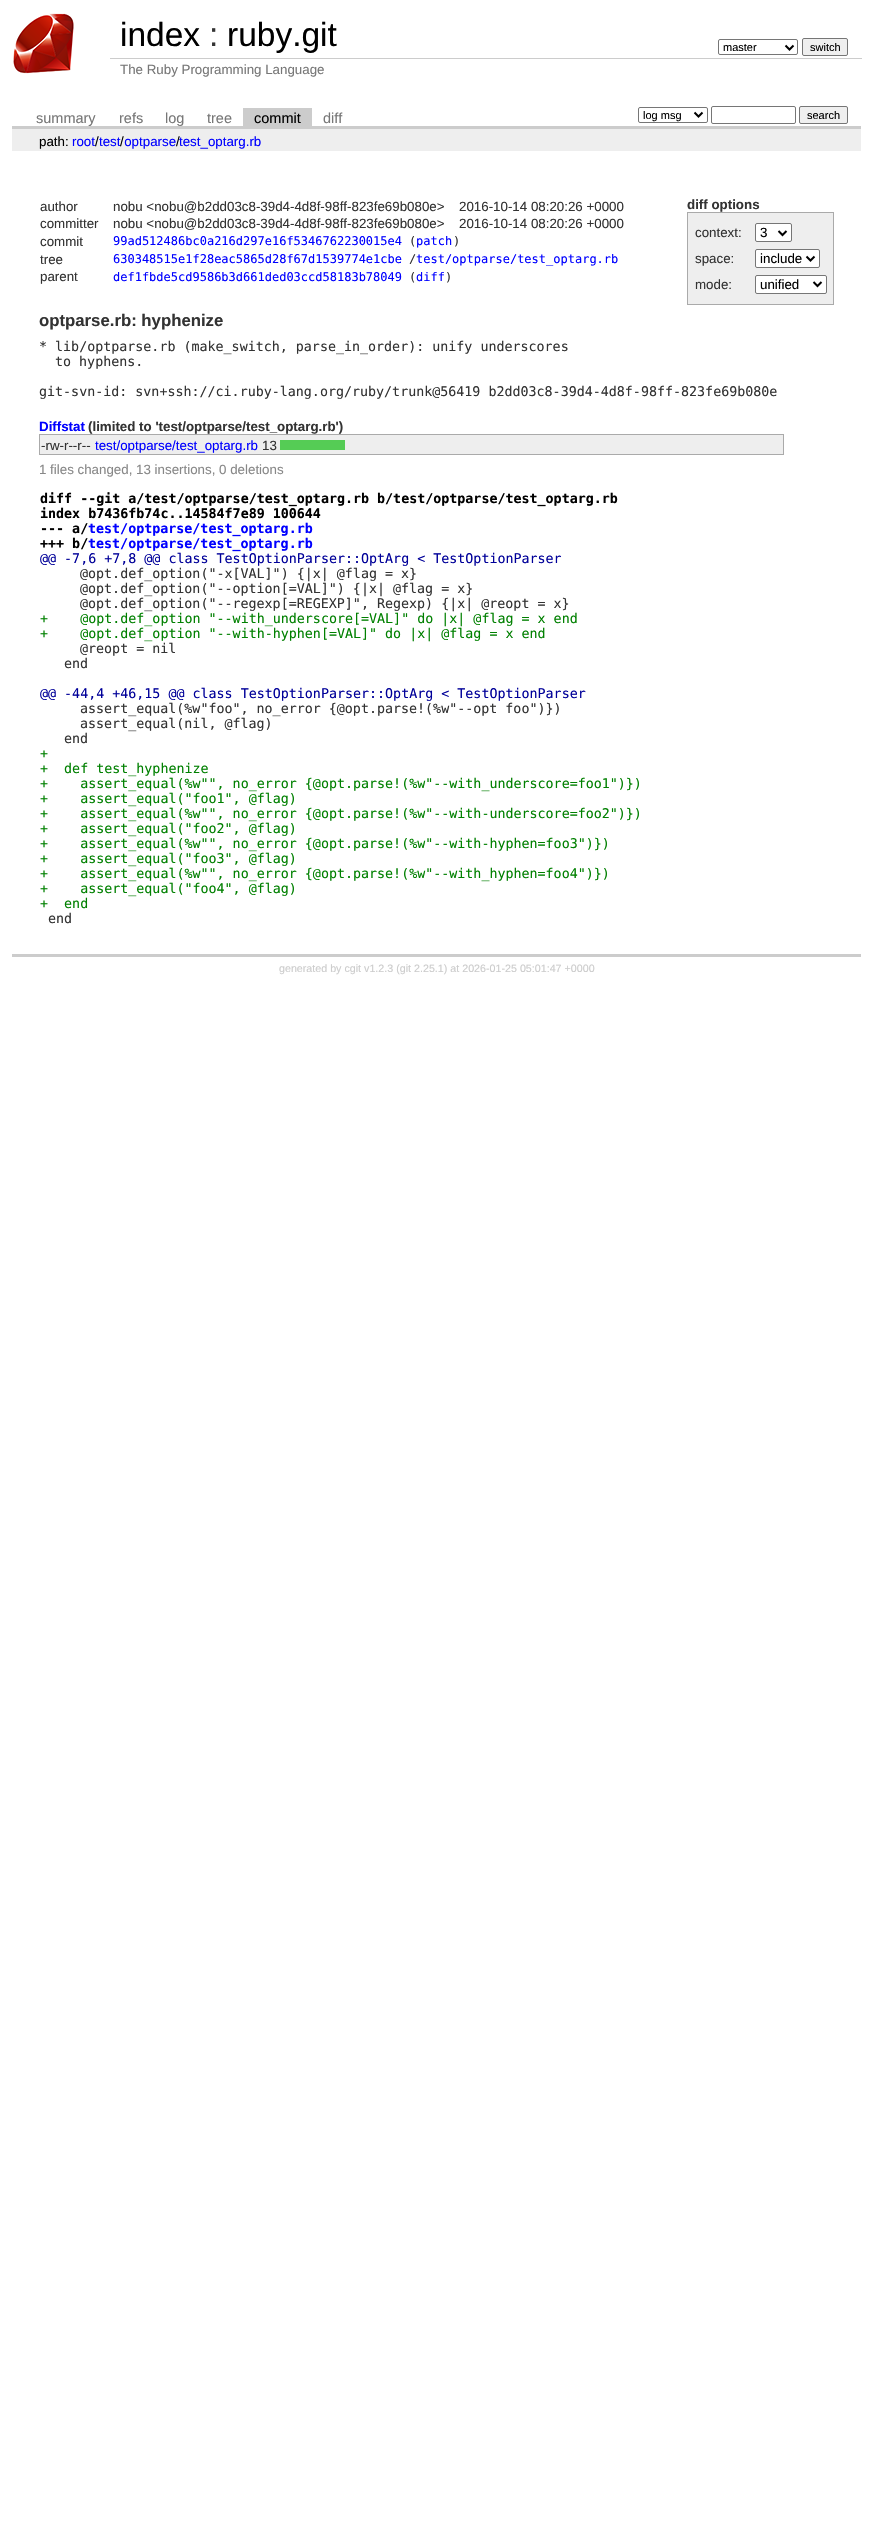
#include "include/core/SkBlurTypes.h"
#include "include/core/SkCanvas.h"
#include "include/core/SkData.h"
#include "include/core/SkFont.h"
#include "include/core/SkFontMgr.h"
#include "include/core/SkImage.h"
#include "include/core/SkMaskFilter.h"
#include "include/core/SkPaint.h"
#include "include/core/SkPathBuilder.h"
#include "include/core/SkTextBlob.h"
#include "include/effects/SkDashPathEffect.h"
#include "include/effects/SkGradientShader.h"
#include "include/utils/SkParsePath.h"

extern sk_sp<SkFontMgr> fontMgr;

void draw(SkCanvas* canvas) {
  SkPaint p;
  p.setAntiAlias(true);
  canvas->clear(SK_ColorWHITE);
  canvas->drawImageRect(SkImages::DeferredFromEncodedData(SkData::MakeFromFileName("images/1.png")), SkRect::MakeLTRB(13, 13, 74, 74), SkSamplingOptions());
  p.setStyle(SkPaint::kStroke_Style);
  p.setStrokeWidth(1);
  p.setColor(SkColorSetRGB(118, 118, 118));
  canvas->drawRoundRect(SkRect::MakeLTRB(718.5f, 39.5f, 797.5f, 54.5f), 1.5f, 1.5f, p);
  p.setStrokeWidth(2);
  p.setColor(SK_ColorBLACK);
  canvas->drawPath(SkPathBuilder().moveTo(785.5f, 45.5f).lineTo(789.5f, 49.5f).lineTo(793.5f, 45.5f).detach(), p);
  p.setStyle(SkPaint::kFill_Style);
  p.setColor(SkColorSetRGB(239, 239, 239));
  canvas->drawRoundRect(SkRect::MakeLTRB(802.5f, 38.5f, 847.5f, 55.5f), 1.5f, 1.5f, p);
  p.setStyle(SkPaint::kStroke_Style);
  p.setStrokeWidth(1);
  p.setColor(SkColorSetRGB(118, 118, 118));
  canvas->drawRoundRect(SkRect::MakeLTRB(802.5f, 38.5f, 847.5f, 55.5f), 1.5f, 1.5f, p);
  p.setStyle(SkPaint::kFill_Style);
  p.setColor(SkColorSetRGB(204, 204, 204));
  canvas->drawRect(SkRect::MakeLTRB(110, 58, 862, 59), p);
  canvas->drawRect(SkRect::MakeLTRB(12, 126, 861, 129), p);
  canvas->drawRect(SkRect::MakeLTRB(243, 108, 312, 126), p);
  p.setStyle(SkPaint::kStroke_Style);
  p.setColor(SkColorSetRGB(118, 118, 118));
  canvas->drawRoundRect(SkRect::MakeLTRB(638.5f, 107.5f, 707.5f, 122.5f), 1.5f, 1.5f, p);
  p.setStrokeWidth(2);
  p.setColor(SK_ColorBLACK);
  canvas->drawPath(SkPathBuilder().moveTo(694.5f, 112.5f).lineTo(698.5f, 116.5f).lineTo(702.5f, 112.5f).detach(), p);
  p.setStrokeWidth(1);
  p.setColor(SkColorSetRGB(118, 118, 118));
  canvas->drawRoundRect(SkRect::MakeLTRB(711.5f, 106.5f, 795.5f, 123.5f), 1.5f, 1.5f, p);
  p.setStyle(SkPaint::kFill_Style);
  p.setColor(SkColorSetRGB(239, 239, 239));
  canvas->drawRoundRect(SkRect::MakeLTRB(799.5f, 106.5f, 847.5f, 123.5f), 1.5f, 1.5f, p);
  p.setStyle(SkPaint::kStroke_Style);
  p.setColor(SkColorSetRGB(118, 118, 118));
  canvas->drawRoundRect(SkRect::MakeLTRB(799.5f, 106.5f, 847.5f, 123.5f), 1.5f, 1.5f, p);
  p.setStyle(SkPaint::kFill_Style);
  p.setColor(SkColorSetRGB(238, 238, 238));
  canvas->drawRect(SkRect::MakeLTRB(12, 129, 861, 151), p);
  p.setColor(SkColorSetRGB(204, 204, 204));
  canvas->drawRect(SkRect::MakeLTRB(12, 954, 861, 957), p);
  p.setColor(SkColorSetRGB(238, 238, 238));
  canvas->drawRect(SkRect::MakeLTRB(688, 213, 833, 304), p);
  p.setColor(SkColorSetRGB(170, 170, 170));
  canvas->drawRect(SkRect::MakeLTRB(687, 212, 834, 213), p);
  canvas->drawRect(SkRect::MakeLTRB(833, 212, 834, 305), p);
  canvas->drawRect(SkRect::MakeLTRB(687, 304, 834, 305), p);
  canvas->drawRect(SkRect::MakeLTRB(687, 212, 688, 305), p);
  p.setColor(SK_ColorWHITE);
  canvas->drawRoundRect(SkRect::MakeLTRB(755.5f, 223.5f, 791.5f, 241.5f), 1.5f, 1.5f, p);
  p.setStyle(SkPaint::kStroke_Style);
  p.setColor(SkColorSetRGB(118, 118, 118));
  canvas->drawRoundRect(SkRect::MakeLTRB(755.5f, 223.5f, 791.5f, 241.5f), 1.5f, 1.5f, p);
  p.setStrokeWidth(2);
  p.setColor(SK_ColorBLACK);
  canvas->drawPath(SkPathBuilder().moveTo(778.5f, 231).lineTo(782.5f, 235).lineTo(786.5f, 231).detach(), p);
  p.setStyle(SkPaint::kFill_Style);
  p.setColor(SK_ColorWHITE);
  canvas->drawRoundRect(SkRect::MakeLTRB(755.5f, 249.5f, 819.5f, 267.5f), 1.5f, 1.5f, p);
  p.setStyle(SkPaint::kStroke_Style);
  p.setStrokeWidth(1);
  p.setColor(SkColorSetRGB(118, 118, 118));
  canvas->drawRoundRect(SkRect::MakeLTRB(755.5f, 249.5f, 819.5f, 267.5f), 1.5f, 1.5f, p);
  p.setStrokeWidth(2);
  p.setColor(SK_ColorBLACK);
  canvas->drawPath(SkPathBuilder().moveTo(806.5f, 256.5f).lineTo(810.5f, 260.5f).lineTo(814.5f, 256.5f).detach(), p);
  p.setStyle(SkPaint::kFill_Style);
  p.setColor(SK_ColorWHITE);
  canvas->drawRoundRect(SkRect::MakeLTRB(755.5f, 275.5f, 826.5f, 293.5f), 1.5f, 1.5f, p);
  p.setStyle(SkPaint::kStroke_Style);
  p.setStrokeWidth(1);
  p.setColor(SkColorSetRGB(118, 118, 118));
  canvas->drawRoundRect(SkRect::MakeLTRB(755.5f, 275.5f, 826.5f, 293.5f), 1.5f, 1.5f, p);
  p.setStrokeWidth(2);
  p.setColor(SK_ColorBLACK);
  canvas->drawPath(SkPathBuilder().moveTo(813.5f, 282).lineTo(817.5f, 286).lineTo(821.5f, 282).detach(), p);
  p.setStyle(SkPaint::kFill_Style);
  p.setColor(SkColorSetRGB(238, 238, 238));
  canvas->drawRect(SkRect::MakeLTRB(40, 435, 783, 454), p);
  p.setColor(SkColorSetRGB(170, 170, 170));
  canvas->drawRect(SkRect::MakeLTRB(39, 434, 784, 435), p);
  canvas->drawRect(SkRect::MakeLTRB(783, 434, 784, 455), p);
  canvas->drawRect(SkRect::MakeLTRB(39, 454, 784, 455), p);
  canvas->drawRect(SkRect::MakeLTRB(39, 434, 40, 455), p);
  p.setColor(SkColorSetRGB(85, 204, 85));
  canvas->drawRect(SkRect::MakeLTRB(280, 440, 345, 450), p);
  SkFont font1(fontMgr->matchFamilyStyle("Liberation Sans", SkFontStyle::Normal()), 33.5f);
  font1.setSubpixel(true);
  p.setColor(SK_ColorBLACK);
  canvas->drawString("index", 120, 46, font1, p);
  p.setColor(SkColorSetRGB(51, 51, 51));
  canvas->drawString(":", 209, 46, font1, p);
  p.setColor(SK_ColorBLACK);
  canvas->drawString("ruby.git", 227, 46, font1, p);
  SkFont font2(fontMgr->matchFamilyStyle("Liberation Sans", SkFontStyle::Normal()), 11);
  font2.setSubpixel(true);
  canvas->drawString("master", 723, 51, font2, p);
  canvas->drawString("switch", 810, 51, font2, p);
  SkFont font3(fontMgr->matchFamilyStyle("Liberation Sans", SkFontStyle::Normal()), 13.33f);
  font3.setSubpixel(true);
  p.setColor(SkColorSetRGB(119, 119, 119));
  canvas->drawString("The Ruby Programming Language", 120, 74, font3, p);
  SkFont font4(fontMgr->matchFamilyStyle("Liberation Sans", SkFontStyle::Normal()), 14.5f);
  font4.setSubpixel(true);
  canvas->drawString("summary", 36, 123, font4, p);
  canvas->drawString("refs", 119, 123, font4, p);
  canvas->drawString("log", 165, 123, font4, p);
  canvas->drawString("tree", 207, 123, font4, p);
  p.setColor(SK_ColorBLACK);
  canvas->drawString("commit", 254, 123, font4, p);
  p.setColor(SkColorSetRGB(119, 119, 119));
  canvas->drawString("diff", 323, 123, font4, p);
  p.setColor(SK_ColorBLACK);
  canvas->drawString("log msg", 643, 119, font2, p);
  canvas->drawString("search", 807, 119, font2, p);
  canvas->drawString("path:", 39, 146, font3, p);
  p.setColor(SkColorSetRGB(0, 0, 255));
  canvas->drawString("root", 72, 146, font3, p);
  p.setColor(SK_ColorBLACK);
  canvas->drawString("/", 95, 146, font3, p);
  p.setColor(SkColorSetRGB(0, 0, 255));
  canvas->drawString("test optparse", 99, 146, font3, p);
  p.setColor(SK_ColorBLACK);
  canvas->drawString("/", 176, 146, font3, p);
  p.setColor(SkColorSetRGB(0, 0, 255));
  canvas->drawString("test_optarg.rb", 179, 146, font3, p);
  p.setColor(SK_ColorBLACK);
  canvas->drawString("/", 120, 146, font3, p);
  p.setColor(SkColorSetRGB(51, 51, 51));
  canvas->drawString("author", 40, 211, font3, p);
  canvas->drawString("nobu <nobu@b2dd03c8-39d4-4d8f-98ff-823fe69b080e>", 113, 211, font3, p);
  canvas->drawString("2016-10-14 08:20:26 +0000", 459, 211, font3, p);
  canvas->drawString("committer", 40, 228, font3, p);
  canvas->drawString("nobu <nobu@b2dd03c8-39d4-4d8f-98ff-823fe69b080e>", 113, 228, font3, p);
  canvas->drawString("2016-10-14 08:20:26 +0000", 459, 228, font3, p);
  canvas->drawString("commit", 40, 246, font3, p);
  SkFont font5(fontMgr->matchFamilyStyle("DejaVu Sans Mono", SkFontStyle::Normal()), 12);
  font5.setSubpixel(true);
  p.setColor(SkColorSetRGB(0, 0, 255));
  canvas->drawString("99ad512486bc0a216d297e16f5346762230015e4", 113, 245, font5, p);
  p.setColor(SkColorSetRGB(51, 51, 51));
  canvas->drawString("(", 409, 245, font5, p);
  p.setColor(SkColorSetRGB(0, 0, 255));
  canvas->drawString("patch", 416, 245, font5, p);
  p.setColor(SkColorSetRGB(51, 51, 51));
  canvas->drawString(")", 453, 245, font5, p);
  canvas->drawString("tree", 40, 264, font3, p);
  p.setColor(SkColorSetRGB(0, 0, 255));
  canvas->drawString("630348515e1f28eac5865d28f67d1539774e1cbe", 113, 263, font5, p);
  p.setColor(SkColorSetRGB(51, 51, 51));
  canvas->drawString("/", 409, 263, font5, p);
  p.setColor(SkColorSetRGB(0, 0, 255));
  canvas->drawString("test/optparse/test_optarg.rb", 416, 263, font5, p);
  p.setColor(SkColorSetRGB(51, 51, 51));
  canvas->drawString("parent", 40, 281, font3, p);
  p.setColor(SkColorSetRGB(0, 0, 255));
  canvas->drawString("def1fbde5cd9586b3d661ded03ccd58183b78049", 113, 281, font5, p);
  p.setColor(SkColorSetRGB(51, 51, 51));
  canvas->drawString("(", 409, 281, font5, p);
  p.setColor(SkColorSetRGB(0, 0, 255));
  canvas->drawString("diff", 416, 281, font5, p);
  p.setColor(SkColorSetRGB(51, 51, 51));
  canvas->drawString(")", 445, 281, font5, p);
  SkFont font6(fontMgr->matchFamilyStyle("Liberation Sans", SkFontStyle::Bold()), 13.33f);
  font6.setSubpixel(true);
  canvas->drawString("diff options", 687, 209, font6, p);
  canvas->drawString("context:", 695, 237, font3, p);
  p.setColor(SK_ColorBLACK);
  canvas->drawString("3", 760, 237, font3, p);
  p.setColor(SkColorSetRGB(51, 51, 51));
  canvas->drawString("space:", 695, 263, font3, p);
  p.setColor(SK_ColorBLACK);
  canvas->drawString("include", 760, 263, font3, p);
  p.setColor(SkColorSetRGB(51, 51, 51));
  canvas->drawString("mode:", 695, 289, font3, p);
  p.setColor(SK_ColorBLACK);
  canvas->drawString("unified", 760, 289, font3, p);
  SkFont font7(fontMgr->matchFamilyStyle("Liberation Sans", SkFontStyle::Bold()), 16.75f);
  font7.setSubpixel(true);
  p.setColor(SkColorSetRGB(51, 51, 51));
  canvas->drawString("optparse.rb: hyphenize", 39, 326, font7, p);
  SkFont font8(fontMgr->matchFamilyStyle("DejaVu Sans Mono", SkFontStyle::Normal()), 13.33f);
  font8.setSubpixel(true);
  canvas->drawString("* lib/optparse.rb (make_switch, parse_in_order): unify underscores", 39, 351, font8, p);
  canvas->drawString("to hyphens.", 55, 366, font8, p);
  canvas->drawString("git-svn-id: svn+ssh://ci.ruby-lang.org/ruby/trunk@56419 b2dd03c8-39d4-4d8f-98ff-823fe69b080e", 39, 396, font8, p);
  p.setColor(SkColorSetRGB(0, 0, 255));
  canvas->drawString("Diffstat", 39, 431, font6, p);
  p.setColor(SkColorSetRGB(51, 51, 51));
  canvas->drawString("(limited to 'test/optparse/test_optarg.rb')", 88, 431, font6, p);
  canvas->drawString("-rw-r--r--", 41, 450, font3, p);
  p.setColor(SkColorSetRGB(0, 0, 255));
  canvas->drawString("test/optparse/test_optarg.rb", 95, 450, font3, p);
  p.setColor(SkColorSetRGB(51, 51, 51));
  canvas->drawString("13", 262, 450, font3, p);
  p.setColor(SkColorSetRGB(136, 136, 136));
  canvas->drawString("1 files changed, 13 insertions, 0 deletions", 39, 474, font3, p);
  SkFont font9(fontMgr->matchFamilyStyle("DejaVu Sans Mono", SkFontStyle::Bold()), 13.33f);
  font9.setSubpixel(true);
  p.setColor(SK_ColorBLACK);
  canvas->drawString("diff --git a/test/optparse/test_optarg.rb b/test/optparse/test_optarg.rb", 40, 503, font9, p);
  canvas->drawString("index b7436fb74c..14584f7e89 100644", 40, 518, font9, p);
  canvas->drawString("--- a/", 40, 533, font9, p);
  p.setColor(SkColorSetRGB(0, 0, 255));
  canvas->drawString("test/optparse/test_optarg.rb", 88, 533, font9, p);
  p.setColor(SK_ColorBLACK);
  canvas->drawString("+++ b/", 40, 548, font9, p);
  p.setColor(SkColorSetRGB(0, 0, 255));
  canvas->drawString("test/optparse/test_optarg.rb", 88, 548, font9, p);
  p.setColor(SkColorSetRGB(0, 0, 153));
  canvas->drawString("@@ -7,6 +7,8 @@ class TestOptionParser::OptArg < TestOptionParser", 40, 563, font8, p);
  p.setColor(SkColorSetRGB(51, 51, 51));
  canvas->drawString("@opt.def_option(\"-x[VAL]\") {|x| @flag = x}", 80, 578, font8, p);
  canvas->drawString("@opt.def_option(\"--option[=VAL]\") {|x| @flag = x}", 80, 593, font8, p);
  canvas->drawString("@opt.def_option(\"--regexp[=REGEXP]\", Regexp) {|x| @reopt = x}", 80, 608, font8, p);
  p.setColor(SkColorSetRGB(0, 128, 0));
  canvas->drawString("+    @opt.def_option \"--with_underscore[=VAL]\" do |x| @flag = x end", 40, 623, font8, p);
  canvas->drawString("+    @opt.def_option \"--with-hyphen[=VAL]\" do |x| @flag = x end", 40, 638, font8, p);
  p.setColor(SkColorSetRGB(51, 51, 51));
  canvas->drawString("@reopt = nil", 80, 653, font8, p);
  canvas->drawString("end", 64, 668, font8, p);
  p.setColor(SkColorSetRGB(0, 0, 153));
  canvas->drawString("@@ -44,4 +46,15 @@ class TestOptionParser::OptArg < TestOptionParser", 40, 698, font8, p);
  p.setColor(SkColorSetRGB(51, 51, 51));
  canvas->drawString("assert_equal(%w\"foo\", no_error {@opt.parse!(%w\"--opt foo\")})", 80, 713, font8, p);
  canvas->drawString("assert_equal(nil, @flag)", 80, 728, font8, p);
  canvas->drawString("end", 64, 743, font8, p);
  p.setColor(SkColorSetRGB(0, 128, 0));
  canvas->drawString("+", 40, 758, font8, p);
  canvas->drawString("+  def test_hyphenize", 40, 773, font8, p);
  canvas->drawString("+    assert_equal(%w\"\", no_error {@opt.parse!(%w\"--with_underscore=foo1\")})", 40, 788, font8, p);
  canvas->drawString("+    assert_equal(\"foo1\", @flag)", 40, 803, font8, p);
  canvas->drawString("+    assert_equal(%w\"\", no_error {@opt.parse!(%w\"--with-underscore=foo2\")})", 40, 818, font8, p);
  canvas->drawString("+    assert_equal(\"foo2\", @flag)", 40, 833, font8, p);
  canvas->drawString("+    assert_equal(%w\"\", no_error {@opt.parse!(%w\"--with-hyphen=foo3\")})", 40, 848, font8, p);
  canvas->drawString("+    assert_equal(\"foo3\", @flag)", 40, 863, font8, p);
  canvas->drawString("+    assert_equal(%w\"\", no_error {@opt.parse!(%w\"--with_hyphen=foo4\")})", 40, 878, font8, p);
  canvas->drawString("+    assert_equal(\"foo4\", @flag)", 40, 893, font8, p);
  canvas->drawString("+  end", 40, 908, font8, p);
  p.setColor(SkColorSetRGB(51, 51, 51));
  canvas->drawString("end", 48, 923, font8, p);
  SkFont font10(fontMgr->matchFamilyStyle("Liberation Sans", SkFontStyle::Normal()), 10.7f);
  font10.setSubpixel(true);
  p.setColor(SkColorSetRGB(204, 204, 204));
  canvas->drawString("generated by cgit v1.2.3 (git 2.25.1) at 2026-01-25 05:01:47 +0000", 279, 972, font10, p);
}
